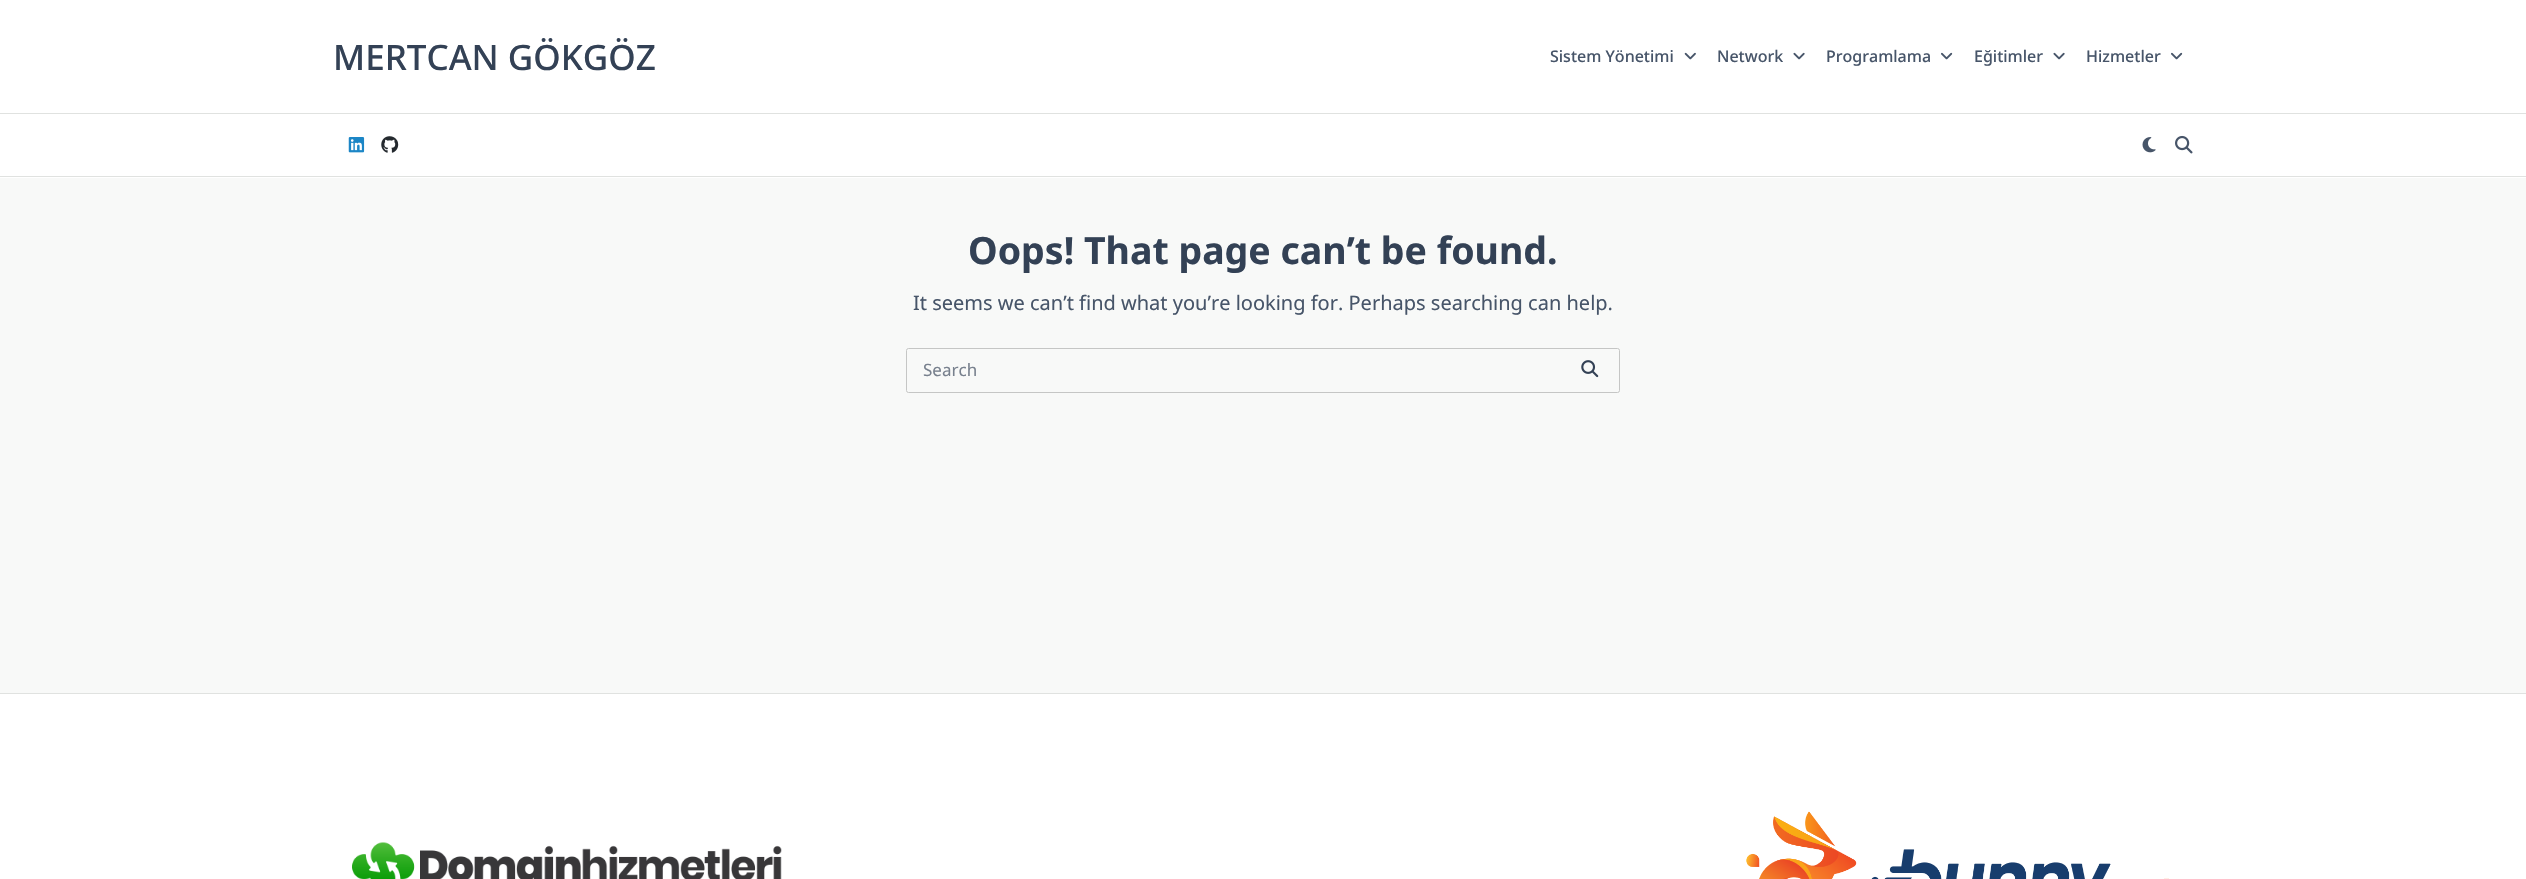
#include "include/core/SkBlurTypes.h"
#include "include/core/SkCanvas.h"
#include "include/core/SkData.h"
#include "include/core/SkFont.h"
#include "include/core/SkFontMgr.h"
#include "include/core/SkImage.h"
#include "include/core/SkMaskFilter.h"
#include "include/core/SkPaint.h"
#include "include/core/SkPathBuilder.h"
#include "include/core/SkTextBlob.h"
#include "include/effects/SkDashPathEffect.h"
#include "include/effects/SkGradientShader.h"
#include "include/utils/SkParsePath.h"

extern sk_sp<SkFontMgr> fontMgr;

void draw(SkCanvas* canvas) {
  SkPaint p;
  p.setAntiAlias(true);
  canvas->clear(SkColorSetRGB(248, 249, 248));
  p.setColor(SK_ColorWHITE);
  canvas->drawRect(SkRect::MakeLTRB(0, 0, 2526, 113), p);
  p.setColor(SkColorSetRGB(224, 226, 224));
  canvas->drawRect(SkRect::MakeLTRB(0, 113, 2526, 114), p);
  canvas->drawImageRect(SkImages::DeferredFromEncodedData(SkData::MakeFromFileName("images/1.png")), SkRect::MakeLTRB(1684, 52, 1696, 60), SkSamplingOptions());
  canvas->drawImageRect(SkImages::DeferredFromEncodedData(SkData::MakeFromFileName("images/2.png")), SkRect::MakeLTRB(1793, 52, 1805, 60), SkSamplingOptions());
  canvas->drawImageRect(SkImages::DeferredFromEncodedData(SkData::MakeFromFileName("images/3.png")), SkRect::MakeLTRB(1941, 52, 1953, 60), SkSamplingOptions());
  canvas->drawImageRect(SkImages::DeferredFromEncodedData(SkData::MakeFromFileName("images/2.png")), SkRect::MakeLTRB(2053, 52, 2065, 60), SkSamplingOptions());
  canvas->drawImageRect(SkImages::DeferredFromEncodedData(SkData::MakeFromFileName("images/3.png")), SkRect::MakeLTRB(2171, 52, 2183, 60), SkSamplingOptions());
  p.setColor(SK_ColorWHITE);
  canvas->drawRect(SkRect::MakeLTRB(0, 114, 2526, 178), p);
  p.setColor(SkColorSetRGB(224, 226, 224));
  canvas->drawRect(SkRect::MakeLTRB(0, 176, 2526, 177), p);
  canvas->drawImageRect(SkImages::DeferredFromEncodedData(SkData::MakeFromFileName("images/4.png")), SkRect::MakeLTRB(348, 137, 365, 153), SkSamplingOptions());
  canvas->drawImageRect(SkImages::DeferredFromEncodedData(SkData::MakeFromFileName("images/5.png")), SkRect::MakeLTRB(381, 136, 399, 153), SkSamplingOptions());
  canvas->drawImageRect(SkImages::DeferredFromEncodedData(SkData::MakeFromFileName("images/6.png")), SkRect::MakeLTRB(2142, 137, 2156, 153), SkSamplingOptions());
  canvas->drawImageRect(SkImages::DeferredFromEncodedData(SkData::MakeFromFileName("images/7.png")), SkRect::MakeLTRB(2175, 135, 2193, 154), SkSamplingOptions());
  p.setStyle(SkPaint::kStroke_Style);
  p.setStrokeWidth(1);
  p.setColor(SkColorSetRGB(197, 198, 197));
  canvas->drawRoundRect(SkRect::MakeLTRB(906.5f, 348.5f, 1619.5f, 392.5f), 2, 2, p);
  canvas->drawImageRect(SkImages::DeferredFromEncodedData(SkData::MakeFromFileName("images/8.png")), SkRect::MakeLTRB(1581, 360, 1599, 378), SkSamplingOptions());
  p.setStyle(SkPaint::kFill_Style);
  p.setColor(SK_ColorWHITE);
  canvas->drawRect(SkRect::MakeLTRB(0, 694, 2526, 879), p);
  p.setColor(SkColorSetRGB(224, 226, 224));
  canvas->drawRect(SkRect::MakeLTRB(0, 693, 2526, 694), p);
  canvas->drawImageRect(SkImages::DeferredFromEncodedData(SkData::MakeFromFileName("images/9.png")), SkRect::MakeLTRB(352, 842, 782, 879), SkSamplingOptions());
  canvas->drawImageRect(SkImages::DeferredFromEncodedData(SkData::MakeFromFileName("images/10.png")), SkRect::MakeLTRB(1746, 811, 2169, 879), SkSamplingOptions());
  SkFont font1(fontMgr->matchFamilyStyle("Noto Sans", SkFontStyle(500, SkFontStyle::kNormal_Width, SkFontStyle::kUpright_Slant)), 35);
  font1.setSubpixel(true);
  p.setColor(SkColorSetRGB(51, 65, 85));
  canvas->drawString("MERTCAN GÖKGÖZ", 333, 70, font1, p);
  SkFont font2(fontMgr->matchFamilyStyle("Noto Sans", SkFontStyle(500, SkFontStyle::kNormal_Width, SkFontStyle::kUpright_Slant)), 16);
  font2.setSubpixel(true);
  p.setColor(SkColorSetRGB(71, 85, 105));
  canvas->drawString("Sistem Yönetimi", 1550, 62, font2, p);
  canvas->drawString("Network", 1717, 62, font2, p);
  canvas->drawString("Programlama", 1826, 62, font2, p);
  canvas->drawString("Eğitimler", 1974, 62, font2, p);
  canvas->drawString("Hizmetler", 2086, 62, font2, p);
  SkFont font3(fontMgr->matchFamilyStyle("Noto Sans", SkFontStyle::Bold()), 37.5f);
  font3.setSubpixel(true);
  p.setColor(SkColorSetRGB(51, 65, 85));
  canvas->drawString("Oops! That page can’t be found.", 968, 264, font3, p);
  SkFont font4(fontMgr->matchFamilyStyle("Noto Sans", SkFontStyle::Normal()), 20);
  font4.setSubpixel(true);
  p.setColor(SkColorSetRGB(71, 85, 105));
  canvas->drawString("It seems we can’t find what you’re looking for. Perhaps searching can help.", 913, 310, font4, p);
  SkFont font5(fontMgr->matchFamilyStyle("Noto Sans", SkFontStyle::Normal()), 17);
  font5.setSubpixel(true);
  p.setColor(SkColorSetRGB(120, 129, 142));
  canvas->drawString("Search", 923, 376, font5, p);
}
